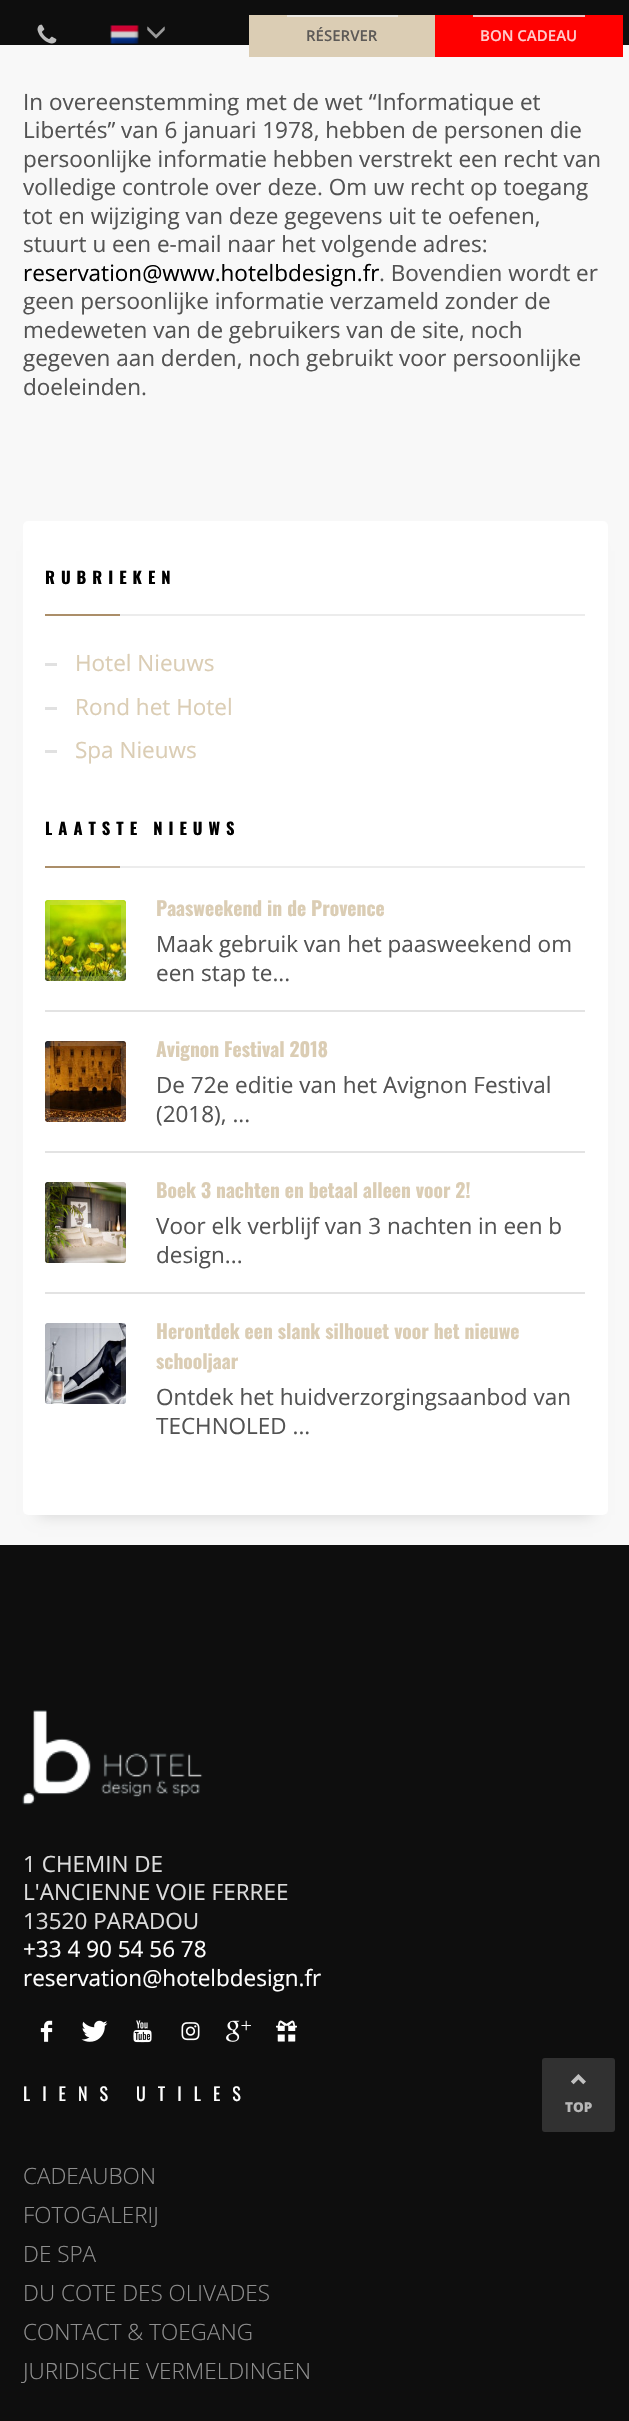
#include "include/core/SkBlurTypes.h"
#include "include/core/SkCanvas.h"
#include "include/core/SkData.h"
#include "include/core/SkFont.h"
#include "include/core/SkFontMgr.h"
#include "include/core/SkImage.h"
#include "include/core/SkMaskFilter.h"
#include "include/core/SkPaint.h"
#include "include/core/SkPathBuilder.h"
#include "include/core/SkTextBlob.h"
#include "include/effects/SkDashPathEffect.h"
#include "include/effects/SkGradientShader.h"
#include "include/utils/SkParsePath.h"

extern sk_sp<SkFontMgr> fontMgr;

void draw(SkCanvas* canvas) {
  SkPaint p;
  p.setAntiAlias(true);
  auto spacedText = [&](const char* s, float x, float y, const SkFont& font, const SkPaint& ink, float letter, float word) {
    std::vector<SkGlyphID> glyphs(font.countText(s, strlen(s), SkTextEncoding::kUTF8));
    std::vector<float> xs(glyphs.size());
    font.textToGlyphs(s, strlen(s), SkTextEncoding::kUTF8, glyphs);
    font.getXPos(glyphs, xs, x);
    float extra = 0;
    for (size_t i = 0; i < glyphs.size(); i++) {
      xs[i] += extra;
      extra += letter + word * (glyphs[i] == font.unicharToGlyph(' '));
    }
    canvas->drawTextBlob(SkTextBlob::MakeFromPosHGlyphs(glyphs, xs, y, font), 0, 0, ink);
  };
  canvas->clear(SkColorSetRGB(248, 248, 248));
  p.setColor(SkColorSetRGB(14, 14, 14));
  canvas->drawRect(SkRect::MakeLTRB(0, 0, 629, 45), p);
  canvas->drawImageRect(SkImages::DeferredFromEncodedData(SkData::MakeFromFileName("images/1.png")), SkRect::MakeLTRB(37, 24, 57, 44), SkSamplingOptions());
  canvas->drawImageRect(SkImages::DeferredFromEncodedData(SkData::MakeFromFileName("images/2.png")), SkRect::MakeLTRB(110, 25, 139, 44), SkSamplingOptions());
  canvas->drawImageRect(SkImages::DeferredFromEncodedData(SkData::MakeFromFileName("images/3.png")), SkRect::MakeLTRB(147, 26, 165, 39), SkSamplingOptions());
  p.setColor(SkColorSetRGB(219, 205, 180));
  canvas->drawRect(SkRect::MakeLTRB(249, 15, 435, 57), p);
  p.setColor(SkColorSetRGB(234, 231, 226));
  canvas->drawRect(SkRect::MakeLTRB(287, 15, 398, 17), p);
  p.setColor(SkColorSetRGB(255, 0, 0));
  canvas->drawRect(SkRect::MakeLTRB(435, 15, 623, 57), p);
  p.setColor(SkColorSetRGB(241, 190, 190));
  canvas->drawRect(SkRect::MakeLTRB(473, 15, 585, 17), p);
  p.setColor(SkColorSetARGB(38, 0, 0, 0));
  p.setMaskFilter(SkMaskFilter::MakeBlur(kNormal_SkBlurStyle, 7.5f));
  canvas->drawRect(SkRect::MakeLTRB(38, 551, 593, 1515), p);
  p.setMaskFilter(nullptr);
  p.setColor(SK_ColorWHITE);
  canvas->drawRoundRect(SkRect::MakeLTRB(23, 521, 608, 1515), 5, 5, p);
  p.setColor(SkColorSetRGB(171, 142, 105));
  canvas->drawRect(SkRect::MakeLTRB(45, 614, 120, 616), p);
  p.setColor(SkColorSetRGB(236, 236, 236));
  canvas->drawRect(SkRect::MakeLTRB(120, 614, 585, 616), p);
  p.setColor(SkColorSetRGB(225, 225, 225));
  canvas->drawRect(SkRect::MakeLTRB(45, 663, 57, 666), p);
  canvas->drawRect(SkRect::MakeLTRB(45, 707, 57, 710), p);
  canvas->drawRect(SkRect::MakeLTRB(45, 750, 57, 753), p);
  p.setColor(SkColorSetRGB(171, 142, 105));
  canvas->drawRect(SkRect::MakeLTRB(45, 866, 120, 868), p);
  p.setColor(SkColorSetRGB(236, 236, 236));
  canvas->drawRect(SkRect::MakeLTRB(120, 866, 585, 868), p);
  p.setColor(SkColorSetRGB(227, 227, 227));
  canvas->drawRect(SkRect::MakeLTRB(45, 1010, 585, 1012), p);
  canvas->drawImageRect(SkImages::DeferredFromEncodedData(SkData::MakeFromFileName("images/4.png")), SkRect::MakeLTRB(45, 900, 126, 981), SkSamplingOptions());
  p.setStyle(SkPaint::kStroke_Style);
  p.setStrokeWidth(5);
  p.setColor(SkColorSetARGB(38, 255, 255, 255));
  canvas->drawRoundRect(SkRect::MakeLTRB(47.5f, 902.5f, 123.5f, 978.5f), 2.5f, 2.5f, p);
  p.setStyle(SkPaint::kFill_Style);
  p.setColor(SkColorSetRGB(227, 227, 227));
  canvas->drawRect(SkRect::MakeLTRB(45, 1151, 585, 1153), p);
  canvas->drawImageRect(SkImages::DeferredFromEncodedData(SkData::MakeFromFileName("images/5.png")), SkRect::MakeLTRB(45, 1041, 126, 1122), SkSamplingOptions());
  p.setStyle(SkPaint::kStroke_Style);
  p.setColor(SkColorSetARGB(38, 255, 255, 255));
  canvas->drawRoundRect(SkRect::MakeLTRB(47.5f, 1043.5f, 123.5f, 1119.5f), 2.5f, 2.5f, p);
  p.setStyle(SkPaint::kFill_Style);
  p.setColor(SkColorSetRGB(227, 227, 227));
  canvas->drawRect(SkRect::MakeLTRB(45, 1292, 585, 1294), p);
  canvas->drawImageRect(SkImages::DeferredFromEncodedData(SkData::MakeFromFileName("images/6.png")), SkRect::MakeLTRB(45, 1182, 126, 1263), SkSamplingOptions());
  p.setStyle(SkPaint::kStroke_Style);
  p.setColor(SkColorSetARGB(38, 255, 255, 255));
  canvas->drawRoundRect(SkRect::MakeLTRB(47.5f, 1184.5f, 123.5f, 1260.5f), 2.5f, 2.5f, p);
  canvas->drawImageRect(SkImages::DeferredFromEncodedData(SkData::MakeFromFileName("images/7.png")), SkRect::MakeLTRB(45, 1323, 126, 1404), SkSamplingOptions());
  canvas->drawRoundRect(SkRect::MakeLTRB(47.5f, 1325.5f, 123.5f, 1401.5f), 2.5f, 2.5f, p);
  p.setStyle(SkPaint::kFill_Style);
  p.setColor(SkColorSetRGB(14, 14, 14));
  canvas->drawRect(SkRect::MakeLTRB(0, 1545, 629, 2421), p);
  canvas->drawImageRect(SkImages::DeferredFromEncodedData(SkData::MakeFromFileName("images/8.png")), SkRect::MakeLTRB(22, 1710, 203, 1805), SkSamplingOptions());
  canvas->drawImageRect(SkImages::DeferredFromEncodedData(SkData::MakeFromFileName("images/9.png")), SkRect::MakeLTRB(40, 2020, 53, 2042), SkSamplingOptions());
  canvas->drawImageRect(SkImages::DeferredFromEncodedData(SkData::MakeFromFileName("images/10.png")), SkRect::MakeLTRB(81, 2020, 108, 2042), SkSamplingOptions());
  canvas->drawImageRect(SkImages::DeferredFromEncodedData(SkData::MakeFromFileName("images/11.png")), SkRect::MakeLTRB(133, 2020, 152, 2043), SkSamplingOptions());
  canvas->drawImageRect(SkImages::DeferredFromEncodedData(SkData::MakeFromFileName("images/12.png")), SkRect::MakeLTRB(181, 2022, 200, 2041), SkSamplingOptions());
  canvas->drawImageRect(SkImages::DeferredFromEncodedData(SkData::MakeFromFileName("images/13.png")), SkRect::MakeLTRB(226, 2020, 251, 2042), SkSamplingOptions());
  canvas->drawImageRect(SkImages::DeferredFromEncodedData(SkData::MakeFromFileName("images/14.png")), SkRect::MakeLTRB(276, 2020, 297, 2042), SkSamplingOptions());
  p.setColor(SkColorSetRGB(49, 49, 49));
  canvas->drawRoundRect(SkRect::MakeLTRB(542, 2058, 615, 2132), 3, 3, p);
  canvas->drawImageRect(SkImages::DeferredFromEncodedData(SkData::MakeFromFileName("images/15.png")), SkRect::MakeLTRB(571, 2074, 586, 2085), SkSamplingOptions());
  SkFont font1(fontMgr->matchFamilyStyle("Open Sans", SkFontStyle(600, SkFontStyle::kNormal_Width, SkFontStyle::kUpright_Slant)), 15);
  font1.setSubpixel(true);
  p.setColor(SkColorSetRGB(93, 90, 87));
  canvas->drawString("RÉSERVER", 306, 41, font1, p);
  p.setColor(SkColorSetRGB(255, 204, 204));
  canvas->drawString("BON CADEAU", 480, 41, font1, p);
  SkFont font2(fontMgr->matchFamilyStyle("Open Sans", SkFontStyle::Normal()), 22.5f);
  font2.setSubpixel(true);
  p.setColor(SkColorSetRGB(83, 83, 83));
  canvas->drawString("In overeenstemming met de wet “Informatique et", 23, 110, font2, p);
  canvas->drawString("Libertés” van 6 januari 1978, hebben de personen die", 23, 138, font2, p);
  canvas->drawString("persoonlijke informatie hebben verstrekt een recht van", 23, 167, font2, p);
  canvas->drawString("volledige controle over deze. Om uw recht op toegang", 23, 195, font2, p);
  canvas->drawString("tot en wijziging van deze gegevens uit te oefenen,", 23, 224, font2, p);
  canvas->drawString("stuurt u een e-mail naar het volgende adres:", 23, 252, font2, p);
  p.setColor(SK_ColorBLACK);
  canvas->drawString("reservation@www.hotelbdesign.fr", 23, 281, font2, p);
  p.setColor(SkColorSetRGB(83, 83, 83));
  canvas->drawString(". Bovendien wordt er", 379, 281, font2, p);
  canvas->drawString("geen persoonlijke informatie verzameld zonder de", 23, 309, font2, p);
  canvas->drawString("medeweten van de gebruikers van de site, noch", 23, 338, font2, p);
  canvas->drawString("gegeven aan derden, noch gebruikt voor persoonlijke", 23, 366, font2, p);
  canvas->drawString("doeleinden.", 23, 395, font2, p);
  SkFont font3(fontMgr->matchFamilyStyle("Oswald", SkFontStyle::Bold()), 16.5f);
  font3.setSubpixel(true);
  p.setColor(SK_ColorBLACK);
  spacedText("RUBRIEKEN", 45, 584, font3, p, 6, 0);
  p.setColor(SkColorSetRGB(219, 205, 180));
  canvas->drawString("Hotel Nieuws", 75, 671, font2, p);
  canvas->drawString("Rond het Hotel", 75, 715, font2, p);
  canvas->drawString("Spa Nieuws", 75, 758, font2, p);
  p.setColor(SK_ColorBLACK);
  spacedText("LAATSTE NIEUWS", 45, 835, font3, p, 6, 0);
  SkFont font4(fontMgr->matchFamilyStyle("Oswald", SkFontStyle::Bold()), 19.5f);
  font4.setSubpixel(true);
  p.setColor(SkColorSetRGB(219, 205, 180));
  canvas->drawString("Paasweekend in de Provence", 156, 916, font4, p);
  p.setColor(SkColorSetRGB(83, 83, 83));
  canvas->drawString("Maak gebruik van het paasweekend om", 156, 952, font2, p);
  canvas->drawString("een stap te...", 156, 981, font2, p);
  p.setColor(SkColorSetRGB(219, 205, 180));
  canvas->drawString("Avignon Festival 2018", 156, 1057, font4, p);
  p.setColor(SkColorSetRGB(83, 83, 83));
  canvas->drawString("De 72e editie van het Avignon Festival", 156, 1093, font2, p);
  canvas->drawString("(2018), ...", 156, 1122, font2, p);
  p.setColor(SkColorSetRGB(219, 205, 180));
  canvas->drawString("Boek 3 nachten en betaal alleen voor 2!", 156, 1198, font4, p);
  p.setColor(SkColorSetRGB(83, 83, 83));
  canvas->drawString("Voor elk verblijf van 3 nachten in een b", 156, 1234, font2, p);
  canvas->drawString("design...", 156, 1263, font2, p);
  p.setColor(SkColorSetRGB(219, 205, 180));
  canvas->drawString("Herontdek een slank silhouet voor het nieuwe", 156, 1339, font4, p);
  canvas->drawString("schooljaar", 156, 1369, font4, p);
  p.setColor(SkColorSetRGB(83, 83, 83));
  canvas->drawString("Ontdek het huidverzorgingsaanbod van", 156, 1405, font2, p);
  canvas->drawString("TECHNOLED ...", 156, 1434, font2, p);
  p.setColor(SkColorSetRGB(220, 220, 220));
  canvas->drawString("1 CHEMIN DE", 23, 1872, font2, p);
  canvas->drawString("L'ANCIENNE VOIE FERREE", 23, 1900, font2, p);
  canvas->drawString("13520 PARADOU", 23, 1929, font2, p);
  p.setColor(SK_ColorWHITE);
  canvas->drawString("+33 4 90 54 56 78", 23, 1957, font2, p);
  canvas->drawString("reservation@hotelbdesign.fr", 23, 1986, font2, p);
  SkFont font5(fontMgr->matchFamilyStyle("Oswald", SkFontStyle::Normal()), 18);
  font5.setSubpixel(true);
  spacedText("LIENS UTILES", 23, 2101, font5, p, 12, 0);
  SkFont font6(fontMgr->matchFamilyStyle("Open Sans", SkFontStyle(300, SkFontStyle::kNormal_Width, SkFontStyle::kUpright_Slant)), 22.5f);
  font6.setSubpixel(true);
  p.setColor(SkColorSetRGB(142, 142, 142));
  canvas->drawString("CADEAUBON", 23, 2184, font6, p);
  canvas->drawString("FOTOGALERIJ", 23, 2223, font6, p);
  canvas->drawString("DE SPA", 23, 2262, font6, p);
  canvas->drawString("DU COTE DES OLIVADES", 23, 2301, font6, p);
  canvas->drawString("CONTACT & TOEGANG", 23, 2340, font6, p);
  canvas->drawString("JURIDISCHE VERMELDINGEN", 23, 2379, font6, p);
  SkFont font7(fontMgr->matchFamilyStyle("Open Sans", SkFontStyle(800, SkFontStyle::kNormal_Width, SkFontStyle::kUpright_Slant)), 13.5f);
  font7.setSubpixel(true);
  p.setColor(SkColorSetRGB(183, 183, 183));
  canvas->drawString("TOP", 565, 2112, font7, p);
}
